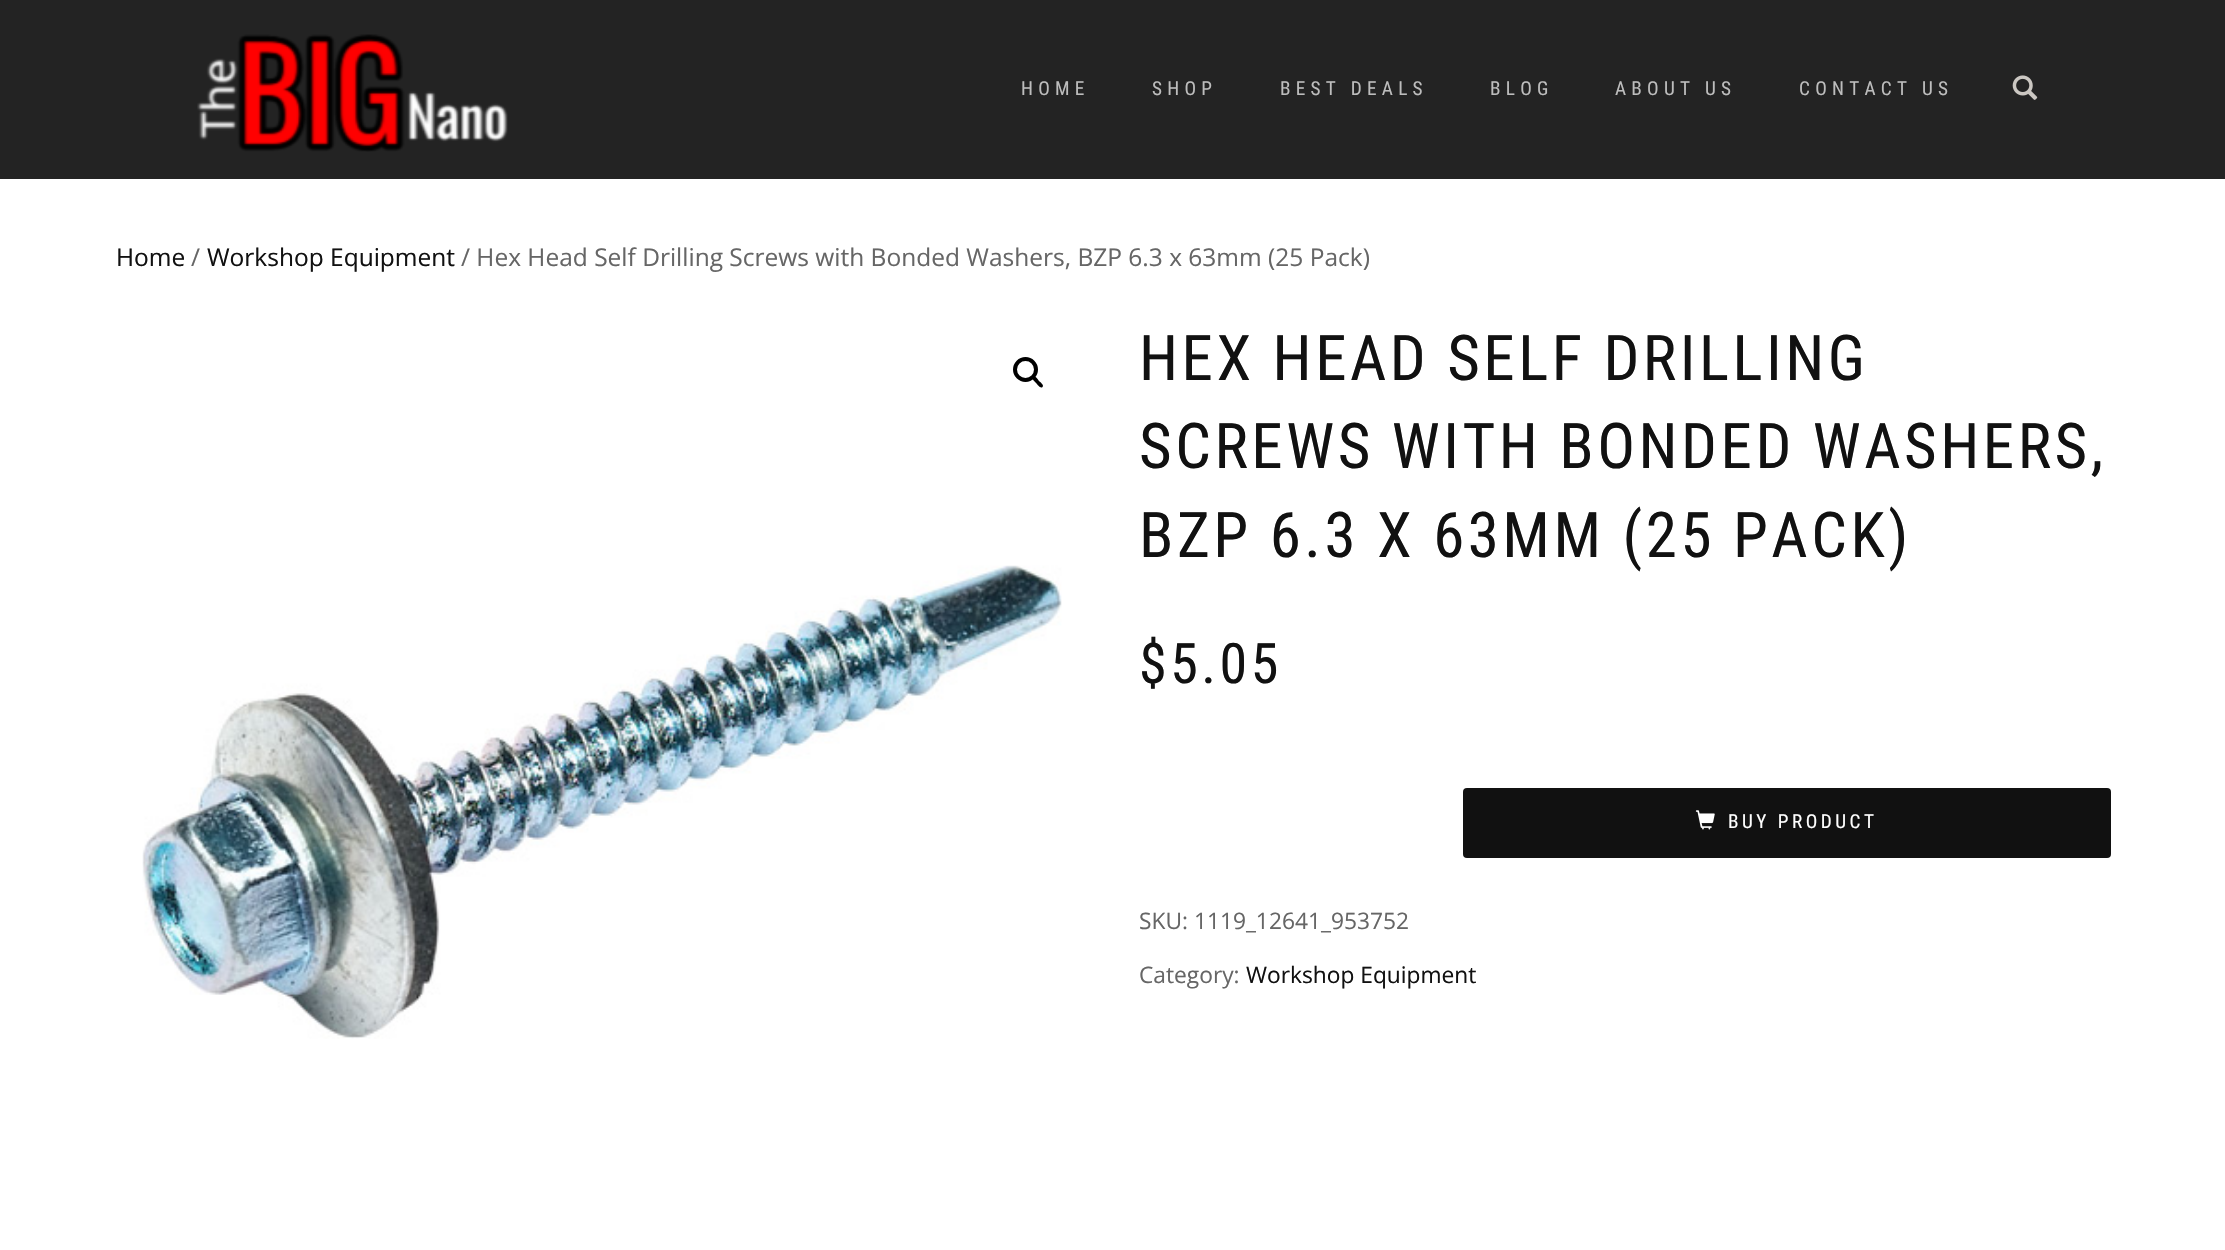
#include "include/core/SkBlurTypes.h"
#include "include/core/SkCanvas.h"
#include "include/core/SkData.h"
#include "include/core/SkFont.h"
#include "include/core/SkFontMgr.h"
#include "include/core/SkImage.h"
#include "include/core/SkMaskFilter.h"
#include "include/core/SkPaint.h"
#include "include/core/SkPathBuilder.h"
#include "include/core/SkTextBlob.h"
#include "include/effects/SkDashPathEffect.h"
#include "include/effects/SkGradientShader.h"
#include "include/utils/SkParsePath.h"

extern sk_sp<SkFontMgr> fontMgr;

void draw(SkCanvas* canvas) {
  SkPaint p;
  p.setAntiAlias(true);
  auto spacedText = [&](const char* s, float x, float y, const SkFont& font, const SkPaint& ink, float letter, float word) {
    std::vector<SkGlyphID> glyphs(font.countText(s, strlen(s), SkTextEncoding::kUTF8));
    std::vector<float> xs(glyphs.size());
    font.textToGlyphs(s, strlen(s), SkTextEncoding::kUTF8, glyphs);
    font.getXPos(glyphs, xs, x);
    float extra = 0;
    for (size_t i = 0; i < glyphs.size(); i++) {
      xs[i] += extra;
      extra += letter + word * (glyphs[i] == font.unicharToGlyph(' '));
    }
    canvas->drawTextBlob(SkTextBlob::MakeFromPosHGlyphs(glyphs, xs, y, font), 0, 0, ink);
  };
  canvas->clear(SK_ColorWHITE);
  p.setColor(SkColorSetRGB(35, 35, 35));
  canvas->drawRect(SkRect::MakeLTRB(0, 0, 2225, 179), p);
  canvas->drawImageRect(SkImages::DeferredFromEncodedData(SkData::MakeFromFileName("images/1.png")), SkRect::MakeLTRB(197, 34, 508, 152), SkSamplingOptions());
  canvas->drawImageRect(SkImages::DeferredFromEncodedData(SkData::MakeFromFileName("images/2.png")), SkRect::MakeLTRB(2012, 75, 2038, 100), SkSamplingOptions());
  p.setStyle(SkPaint::kStroke_Style);
  p.setStrokeWidth(4);
  p.setColor(SK_ColorBLACK);
  canvas->drawCircle(1025.5f, 369.5f, 10.5f, p);
  p.setStyle(SkPaint::kFill_Style);
  canvas->drawPath(SkPathBuilder().moveTo(1033, 377).cubicTo(1035, 375, 1038, 379.5f, 1039, 381).cubicTo(1040, 382, 1044.5f, 385, 1042.5f, 387).cubicTo(1040.5f, 389, 1037.5f, 384.5f, 1036.5f, 383.5f).cubicTo(1035.5f, 382, 1031, 379, 1033, 377).close().detach(), p);
  canvas->drawImageRect(SkImages::DeferredFromEncodedData(SkData::MakeFromFileName("images/3.png")), SkRect::MakeLTRB(142, 565, 1062, 1039), SkSamplingOptions());
  p.setColor(SkColorSetRGB(17, 17, 17));
  canvas->drawRoundRect(SkRect::MakeLTRB(1463, 788, 2111, 858), 4, 4, p);
  canvas->drawImageRect(SkImages::DeferredFromEncodedData(SkData::MakeFromFileName("images/4.png")), SkRect::MakeLTRB(1695, 810, 1715, 830), SkSamplingOptions());
  SkFont font1(fontMgr->matchFamilyStyle("Roboto Condensed", SkFontStyle::Normal()), 19.25f);
  font1.setSubpixel(true);
  p.setColor(SkColorSetRGB(189, 189, 189));
  spacedText("HOME", 1021, 95, font1, p, 5.25f, 0);
  spacedText("SHOP", 1152, 95, font1, p, 5.25f, 0);
  spacedText("BEST DEALS", 1280, 95, font1, p, 5.25f, 0);
  spacedText("BLOG", 1490, 95, font1, p, 5.25f, 0);
  spacedText("ABOUT US", 1615, 95, font1, p, 5.25f, 0);
  spacedText("CONTACT US", 1799, 95, font1, p, 5.25f, 0);
  SkFont font2(fontMgr->matchFamilyStyle("Open Sans", SkFontStyle::Normal()), 24.5f);
  font2.setSubpixel(true);
  p.setColor(SkColorSetRGB(17, 17, 17));
  canvas->drawString("Home", 116, 266, font2, p);
  p.setColor(SkColorSetRGB(102, 102, 102));
  canvas->drawString("/", 191, 266, font2, p);
  p.setColor(SkColorSetRGB(17, 17, 17));
  canvas->drawString("Workshop Equipment", 207, 266, font2, p);
  p.setColor(SkColorSetRGB(102, 102, 102));
  canvas->drawString("/ Hex Head Self Drilling Screws with Bonded Washers, BZP 6.3 x 63mm (25 Pack)", 461, 266, font2, p);
  SkFont font3(fontMgr->matchFamilyStyle("Roboto Condensed", SkFontStyle::Normal()), 63);
  font3.setSubpixel(true);
  p.setColor(SkColorSetRGB(17, 17, 17));
  spacedText("HEX HEAD SELF DRILLING", 1139, 380, font3, p, 3.5f, 0);
  spacedText("SCREWS WITH BONDED WASHERS,", 1139, 468, font3, p, 3.5f, 0);
  spacedText("BZP 6.3 X 63MM (25 PACK)", 1139, 557, font3, p, 3.5f, 0);
  SkFont font4(fontMgr->matchFamilyStyle("Roboto Condensed", SkFontStyle::Normal()), 56);
  font4.setSubpixel(true);
  spacedText("$5.05", 1139, 683, font4, p, 3.5f, 0);
  p.setColor(SK_ColorWHITE);
  spacedText("BUY PRODUCT", 1728, 828, font1, p, 3.5f, 0);
  SkFont font5(fontMgr->matchFamilyStyle("Open Sans", SkFontStyle::Normal()), 22.75f);
  font5.setSubpixel(true);
  p.setColor(SkColorSetRGB(102, 102, 102));
  canvas->drawString("SKU: 1119_12641_953752", 1139, 929, font5, p);
  canvas->drawString("Category:", 1139, 983, font5, p);
  p.setColor(SkColorSetRGB(17, 17, 17));
  canvas->drawString("Workshop Equipment", 1246, 983, font5, p);
}
